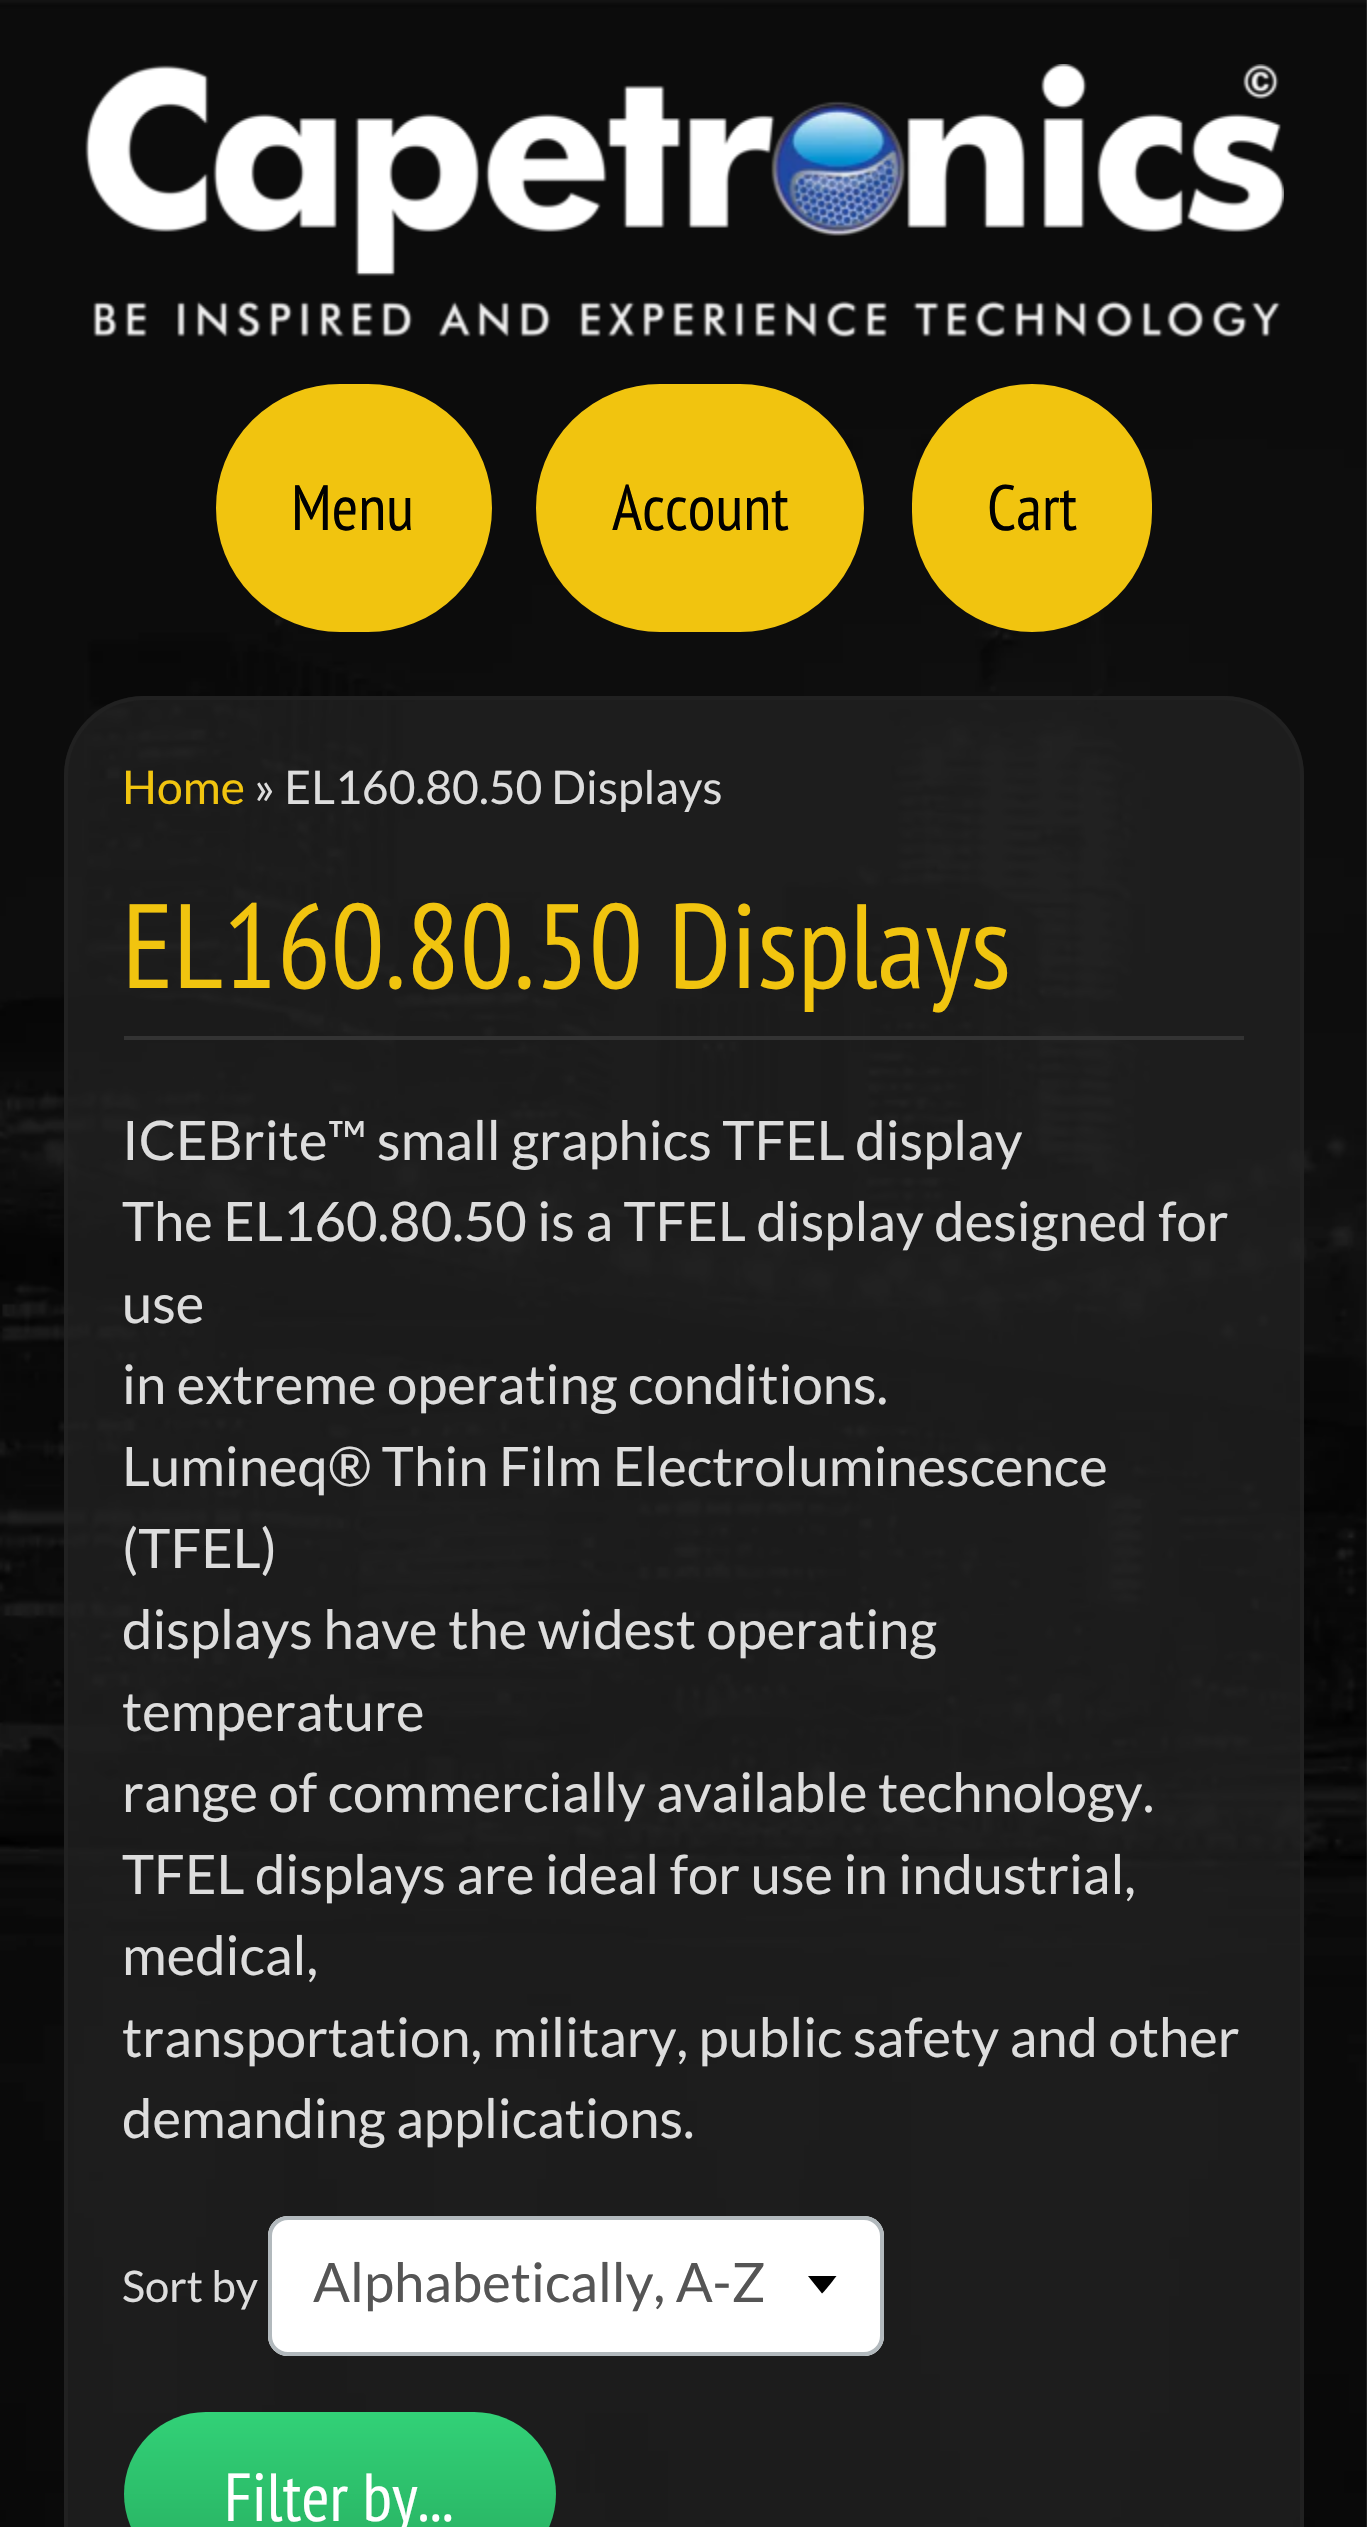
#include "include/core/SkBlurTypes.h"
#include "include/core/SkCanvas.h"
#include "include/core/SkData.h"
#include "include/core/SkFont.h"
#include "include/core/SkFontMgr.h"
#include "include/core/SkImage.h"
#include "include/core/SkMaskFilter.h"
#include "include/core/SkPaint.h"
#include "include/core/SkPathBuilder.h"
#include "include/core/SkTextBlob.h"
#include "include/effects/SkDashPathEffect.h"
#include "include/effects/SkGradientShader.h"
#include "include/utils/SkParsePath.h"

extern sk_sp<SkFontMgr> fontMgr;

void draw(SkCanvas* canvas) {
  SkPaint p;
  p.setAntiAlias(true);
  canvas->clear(SK_ColorWHITE);
  canvas->drawImageRect(SkImages::DeferredFromEncodedData(SkData::MakeFromFileName("images/1.png")), SkRect::MakeLTRB(0, 0, 1367, 2527), SkSamplingOptions());
  canvas->drawImageRect(SkImages::DeferredFromEncodedData(SkData::MakeFromFileName("images/2.png")), SkRect::MakeLTRB(85, 64, 1284, 338), SkSamplingOptions());
  p.setColor(SkColorSetRGB(241, 196, 15));
  canvas->drawRoundRect(SkRect::MakeLTRB(222, 390, 486, 626), 118, 118, p);
  p.setStyle(SkPaint::kStroke_Style);
  p.setStrokeWidth(12);
  canvas->drawRoundRect(SkRect::MakeLTRB(222, 390, 486, 626), 118, 118, p);
  p.setStyle(SkPaint::kFill_Style);
  canvas->drawRoundRect(SkRect::MakeLTRB(542, 390, 858, 626), 118, 118, p);
  p.setStyle(SkPaint::kStroke_Style);
  canvas->drawRoundRect(SkRect::MakeLTRB(542, 390, 858, 626), 118, 118, p);
  p.setStyle(SkPaint::kFill_Style);
  canvas->drawRoundRect(SkRect::MakeLTRB(918, 390, 1146, 626), 114, 114, p);
  p.setStyle(SkPaint::kStroke_Style);
  canvas->drawRoundRect(SkRect::MakeLTRB(918, 390, 1146, 626), 114, 114, p);
  p.setStyle(SkPaint::kFill_Style);
  p.setColor(SkColorSetARGB(191, 34, 34, 34));
  canvas->drawRoundRect(SkRect::MakeLTRB(64, 696, 1304, 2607), 80, 80, p);
  p.setStyle(SkPaint::kStroke_Style);
  p.setStrokeWidth(4);
  p.setColor(SkColorSetARGB(179, 34, 34, 34));
  canvas->drawRoundRect(SkRect::MakeLTRB(66, 698, 1302, 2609), 78, 78, p);
  p.setStyle(SkPaint::kFill_Style);
  p.setColor(SkColorSetRGB(51, 51, 51));
  canvas->drawRect(SkRect::MakeLTRB(124, 1036, 1244, 1040), p);
  p.setColor(SK_ColorWHITE);
  canvas->drawRoundRect(SkRect::MakeLTRB(268, 2216, 884, 2356), 20, 20, p);
  p.setColor(SK_ColorBLACK);
  canvas->drawPath(SkPathBuilder().moveTo(808, 2276).lineTo(822, 2293.5f).cubicTo(823, 2293.5f, 835, 2278, 836.5f, 2276).close().detach(), p);
  p.setStyle(SkPaint::kStroke_Style);
  p.setColor(SkColorSetRGB(178, 185, 189));
  canvas->drawRoundRect(SkRect::MakeLTRB(270, 2218, 882, 2354), 18, 18, p);
  p.setStyle(SkPaint::kFill_Style);
  {
    const SkColor colors[] = {SkColorSetRGB(50, 209, 119), SkColorSetRGB(39, 174, 96)};
    const float stops[] = {0, 1};
    const SkPoint ends[] = {{340, 2412}, {340, 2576}};
    p.setShader(SkGradientShader::MakeLinear(ends, colors, stops, 2, SkTileMode::kClamp));
    p.setAlpha(255);
  }
  canvas->drawRoundRect(SkRect::MakeLTRB(124, 2412, 556, 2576), 82, 82, p);
  SkFont font1(fontMgr->matchFamilyStyle("PT Sans Narrow", SkFontStyle::Normal()), 64);
  font1.setSubpixel(true);
  p.setShader(nullptr);
  p.setColor(SK_ColorBLACK);
  canvas->drawString("Menu", 291, 530, font1, p);
  canvas->drawString("Account", 612, 530, font1, p);
  canvas->drawString("Cart", 987, 530, font1, p);
  SkFont font2(fontMgr->matchFamilyStyle("Lato", SkFontStyle::Normal()), 46.25f);
  font2.setSubpixel(true);
  p.setColor(SkColorSetRGB(241, 196, 15));
  canvas->drawString("Home", 122, 804, font2, p);
  p.setColor(SkColorSetRGB(221, 221, 221));
  canvas->drawString("» EL160.80.50 Displays", 254, 804, font2, p);
  SkFont font3(fontMgr->matchFamilyStyle("PT Sans Narrow", SkFontStyle::Normal()), 119.75f);
  font3.setSubpixel(true);
  p.setColor(SkColorSetRGB(241, 196, 15));
  canvas->drawString("EL160.80.50 Displays", 122, 988, font3, p);
  SkFont font4(fontMgr->matchFamilyStyle("Lato", SkFontStyle::Normal()), 54.4f);
  font4.setSubpixel(true);
  p.setColor(SkColorSetRGB(221, 221, 221));
  canvas->drawString("ICEBrite™ small graphics TFEL display", 122, 1160, font4, p);
  canvas->drawString("The EL160.80.50 is a TFEL display designed for", 122, 1241, font4, p);
  canvas->drawString("use", 122, 1323, font4, p);
  canvas->drawString("in extreme operating conditions.", 122, 1404, font4, p);
  canvas->drawString("Lumineq® Thin Film Electroluminescence", 122, 1486, font4, p);
  canvas->drawString("(TFEL)", 122, 1568, font4, p);
  canvas->drawString("displays have the widest operating", 122, 1649, font4, p);
  canvas->drawString("temperature", 122, 1731, font4, p);
  canvas->drawString("range of commercially available technology.", 122, 1812, font4, p);
  canvas->drawString("TFEL displays are ideal for use in industrial,", 122, 1894, font4, p);
  canvas->drawString("medical,", 122, 1975, font4, p);
  canvas->drawString("transportation, military, public safety and other", 122, 2057, font4, p);
  canvas->drawString("demanding applications.", 122, 2138, font4, p);
  SkFont font5(fontMgr->matchFamilyStyle("Lato", SkFontStyle::Normal()), 43.5f);
  font5.setSubpixel(true);
  canvas->drawString("Sort by", 122, 2302, font5, p);
  p.setColor(SkColorSetRGB(85, 85, 85));
  canvas->drawString("Alphabetically, A-Z", 313, 2302, font4, p);
  SkFont font6(fontMgr->matchFamilyStyle("PT Sans Narrow", SkFontStyle::Normal()), 68);
  font6.setSubpixel(true);
  p.setColor(SK_ColorWHITE);
  canvas->drawString("Filter by...", 224, 2521, font6, p);
}
